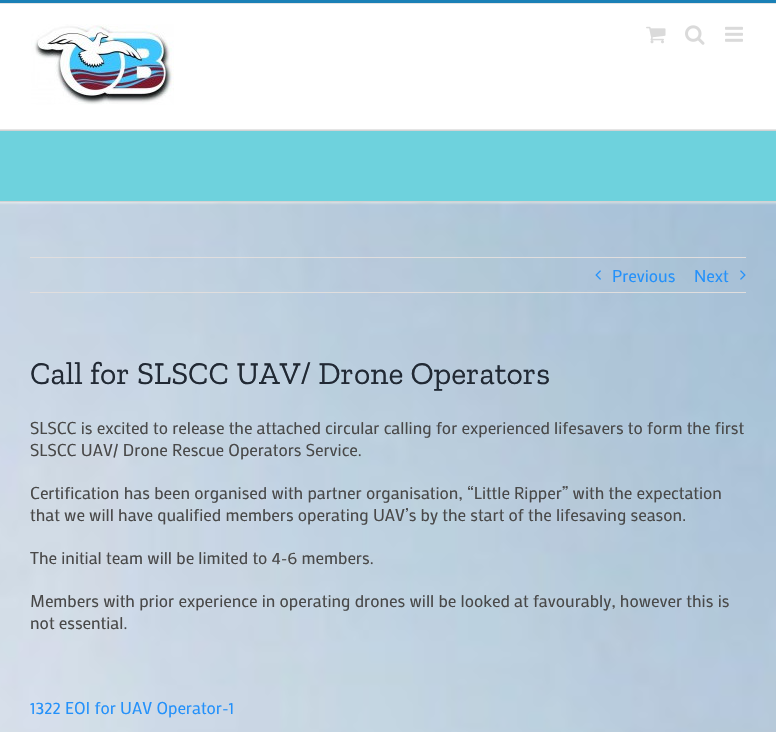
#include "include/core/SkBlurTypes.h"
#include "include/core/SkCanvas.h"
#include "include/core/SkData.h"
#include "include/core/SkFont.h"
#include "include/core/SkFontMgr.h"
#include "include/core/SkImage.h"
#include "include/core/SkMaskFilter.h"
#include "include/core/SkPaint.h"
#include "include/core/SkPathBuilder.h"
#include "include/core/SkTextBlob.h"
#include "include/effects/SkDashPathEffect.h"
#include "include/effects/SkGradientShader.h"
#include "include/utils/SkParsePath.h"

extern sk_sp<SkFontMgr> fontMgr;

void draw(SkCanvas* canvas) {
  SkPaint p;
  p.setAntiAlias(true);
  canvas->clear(SK_ColorWHITE);
  p.setColor(SkColorSetRGB(26, 128, 182));
  canvas->drawRect(SkRect::MakeLTRB(0, 0, 776, 3), p);
  p.setColor(SkColorSetRGB(229, 229, 229));
  canvas->drawRect(SkRect::MakeLTRB(0, 3, 776, 4), p);
  canvas->drawRect(SkRect::MakeLTRB(0, 129, 776, 130), p);
  canvas->drawImageRect(SkImages::DeferredFromEncodedData(SkData::MakeFromFileName("images/1.png")), SkRect::MakeLTRB(31, 24, 174, 105), SkSamplingOptions());
  canvas->drawImageRect(SkImages::DeferredFromEncodedData(SkData::MakeFromFileName("images/2.png")), SkRect::MakeLTRB(646, 26, 666, 44), SkSamplingOptions());
  canvas->drawImageRect(SkImages::DeferredFromEncodedData(SkData::MakeFromFileName("images/3.png")), SkRect::MakeLTRB(685, 25, 705, 45), SkSamplingOptions());
  canvas->drawImageRect(SkImages::DeferredFromEncodedData(SkData::MakeFromFileName("images/4.png")), SkRect::MakeLTRB(725, 26, 743, 42), SkSamplingOptions());
  p.setColor(SkColorSetRGB(110, 210, 221));
  canvas->drawRect(SkRect::MakeLTRB(0, 131, 776, 201), p);
  p.setColor(SkColorSetRGB(210, 211, 212));
  canvas->drawRect(SkRect::MakeLTRB(0, 130, 776, 131), p);
  canvas->drawRect(SkRect::MakeLTRB(0, 201, 776, 202), p);
  canvas->drawImageRect(SkImages::DeferredFromEncodedData(SkData::MakeFromFileName("images/5.png")), SkRect::MakeLTRB(0, 202, 776, 732), SkSamplingOptions());
  p.setColor(SkColorSetRGB(224, 222, 222));
  canvas->drawRect(SkRect::MakeLTRB(30, 257, 746, 258), p);
  canvas->drawRect(SkRect::MakeLTRB(30, 292, 746, 293), p);
  canvas->drawImageRect(SkImages::DeferredFromEncodedData(SkData::MakeFromFileName("images/6.png")), SkRect::MakeLTRB(595, 270, 601, 280), SkSamplingOptions());
  canvas->drawImageRect(SkImages::DeferredFromEncodedData(SkData::MakeFromFileName("images/7.png")), SkRect::MakeLTRB(740, 270, 746, 280), SkSamplingOptions());
  SkFont font1(fontMgr->matchFamilyStyle("Mako", SkFontStyle::Normal()), 17);
  font1.setSubpixel(true);
  p.setColor(SkColorSetRGB(36, 145, 250));
  canvas->drawString("Previous", 612, 282, font1, p);
  canvas->drawString("Next", 694, 282, font1, p);
  SkFont font2(fontMgr->matchFamilyStyle("Zilla Slab", SkFontStyle::Normal()), 31.75f);
  font2.setSubpixel(true);
  p.setColor(SkColorSetRGB(33, 41, 52));
  canvas->drawString("Call for SLSCC UAV/ Drone Operators", 30, 384, font2, p);
  p.setColor(SkColorSetRGB(73, 73, 73));
  canvas->drawString("SLSCC is excited to release the attached circular calling for experienced lifesavers to form the first", 30, 434, font1, p);
  canvas->drawString("SLSCC UAV/ Drone Rescue Operators Service.", 30, 456, font1, p);
  canvas->drawString("Certification has been organised with partner organisation, “Little Ripper” with the expectation", 30, 499, font1, p);
  canvas->drawString("that we will have qualified members operating UAV’s by the start of the lifesaving season.", 30, 521, font1, p);
  canvas->drawString("The initial team will be limited to 4-6 members.", 30, 564, font1, p);
  canvas->drawString("Members with prior experience in operating drones will be looked at favourably, however this is", 30, 607, font1, p);
  canvas->drawString("not essential.", 30, 629, font1, p);
  p.setColor(SkColorSetRGB(36, 145, 250));
  canvas->drawString("1322 EOI for UAV Operator-1", 30, 714, font1, p);
}
